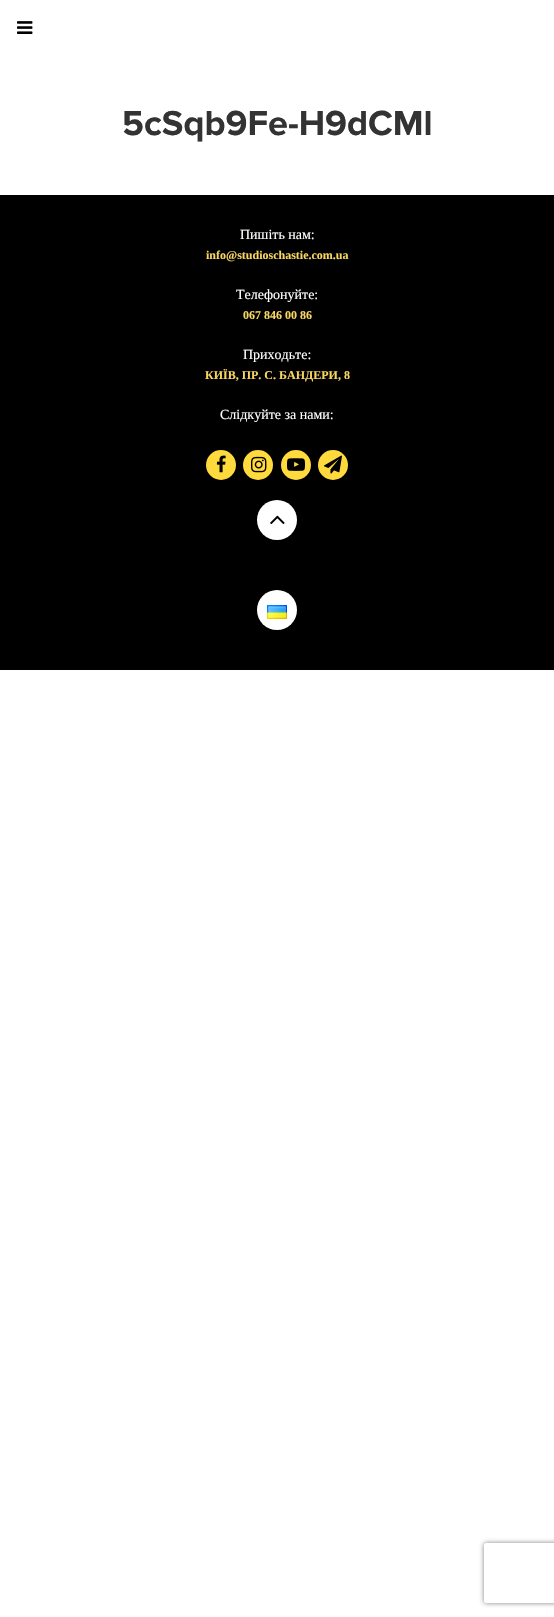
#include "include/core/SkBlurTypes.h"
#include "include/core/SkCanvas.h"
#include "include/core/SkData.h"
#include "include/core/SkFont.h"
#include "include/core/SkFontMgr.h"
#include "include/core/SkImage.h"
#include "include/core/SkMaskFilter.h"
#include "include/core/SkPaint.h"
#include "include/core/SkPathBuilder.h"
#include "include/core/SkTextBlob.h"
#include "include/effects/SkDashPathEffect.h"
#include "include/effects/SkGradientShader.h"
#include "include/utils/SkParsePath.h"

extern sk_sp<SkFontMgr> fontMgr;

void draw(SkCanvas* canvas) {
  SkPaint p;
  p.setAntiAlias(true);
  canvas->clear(SK_ColorWHITE);
  canvas->drawImageRect(SkImages::DeferredFromEncodedData(SkData::MakeFromFileName("images/1.png")), SkRect::MakeLTRB(17, 21, 33, 34), SkSamplingOptions());
  p.setColor(SK_ColorBLACK);
  canvas->drawRect(SkRect::MakeLTRB(0, 195, 554, 670), p);
  p.setColor(SkColorSetRGB(255, 218, 61));
  canvas->drawCircle(221, 465, 15, p);
  canvas->drawImageRect(SkImages::DeferredFromEncodedData(SkData::MakeFromFileName("images/2.png")), SkRect::MakeLTRB(216, 455, 226, 473), SkSamplingOptions());
  canvas->drawCircle(258, 465, 15, p);
  canvas->drawImageRect(SkImages::DeferredFromEncodedData(SkData::MakeFromFileName("images/3.png")), SkRect::MakeLTRB(251, 456, 267, 473), SkSamplingOptions());
  canvas->drawCircle(296, 465, 15, p);
  canvas->drawImageRect(SkImages::DeferredFromEncodedData(SkData::MakeFromFileName("images/4.png")), SkRect::MakeLTRB(287, 458, 305, 471), SkSamplingOptions());
  canvas->drawCircle(333, 465, 15, p);
  canvas->drawImageRect(SkImages::DeferredFromEncodedData(SkData::MakeFromFileName("images/5.png")), SkRect::MakeLTRB(324, 455, 342, 474), SkSamplingOptions());
  p.setColor(SK_ColorWHITE);
  canvas->drawCircle(277, 520, 20, p);
  canvas->drawImageRect(SkImages::DeferredFromEncodedData(SkData::MakeFromFileName("images/6.png")), SkRect::MakeLTRB(270, 515, 285, 524), SkSamplingOptions());
  canvas->drawCircle(277, 610, 20, p);
  canvas->drawImageRect(SkImages::DeferredFromEncodedData(SkData::MakeFromFileName("images/7.png")), SkRect::MakeLTRB(267, 605, 287, 619), SkSamplingOptions());
  canvas->save();
  canvas->clipPath(SkPathBuilder(SkPathFillType::kEvenOdd).moveTo(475, 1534).lineTo(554, 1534).lineTo(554, 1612).lineTo(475, 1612).close().moveTo(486, 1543).lineTo(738, 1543).cubicTo(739, 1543, 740, 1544, 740, 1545).lineTo(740, 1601).cubicTo(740, 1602, 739, 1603, 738, 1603).lineTo(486, 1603).cubicTo(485, 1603, 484, 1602, 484, 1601).lineTo(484, 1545).cubicTo(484, 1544, 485, 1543, 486, 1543).close().detach(), true);
  p.setColor(SkColorSetRGB(128, 128, 128));
  p.setMaskFilter(SkMaskFilter::MakeBlur(kNormal_SkBlurStyle, 2.5f));
  canvas->drawRoundRect(SkRect::MakeLTRB(484, 1543, 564, 1603), 2, 2, p);
  p.setMaskFilter(nullptr);
  canvas->restore();
  SkFont font1(fontMgr->matchFamilyStyle("Proxima Nova", SkFontStyle::Bold()), 36);
  font1.setSubpixel(true);
  p.setColor(SkColorSetRGB(51, 51, 51));
  canvas->drawString("5cSqb9Fe-H9dCMl", 122, 135, font1, p);
  SkFont font2(fontMgr->matchFamilyStyle("Liberation Serif", SkFontStyle::Normal()), 14);
  font2.setSubpixel(true);
  p.setColor(SK_ColorWHITE);
  canvas->drawString("Пишіть нам:", 240, 239, font2, p);
  SkFont font3(fontMgr->matchFamilyStyle("Liberation Serif", SkFontStyle::Bold()), 12);
  font3.setSubpixel(true);
  p.setColor(SkColorSetRGB(247, 214, 97));
  canvas->drawString("info@studioschastie.com.ua", 206, 259, font3, p);
  p.setColor(SK_ColorWHITE);
  canvas->drawString("Телефонуйте:", 236, 299, font2, p);
  p.setColor(SkColorSetRGB(247, 214, 97));
  canvas->drawString("067 846 00 86", 243, 319, font3, p);
  p.setColor(SK_ColorWHITE);
  canvas->drawString("Приходьте:", 243, 359, font2, p);
  p.setColor(SkColorSetRGB(247, 214, 97));
  canvas->drawString("КИЇВ, ПР. С. БАНДЕРИ, 8", 205, 379, font3, p);
  p.setColor(SK_ColorWHITE);
  canvas->drawString("Слідкуйте за нами:", 220, 419, font2, p);
}
